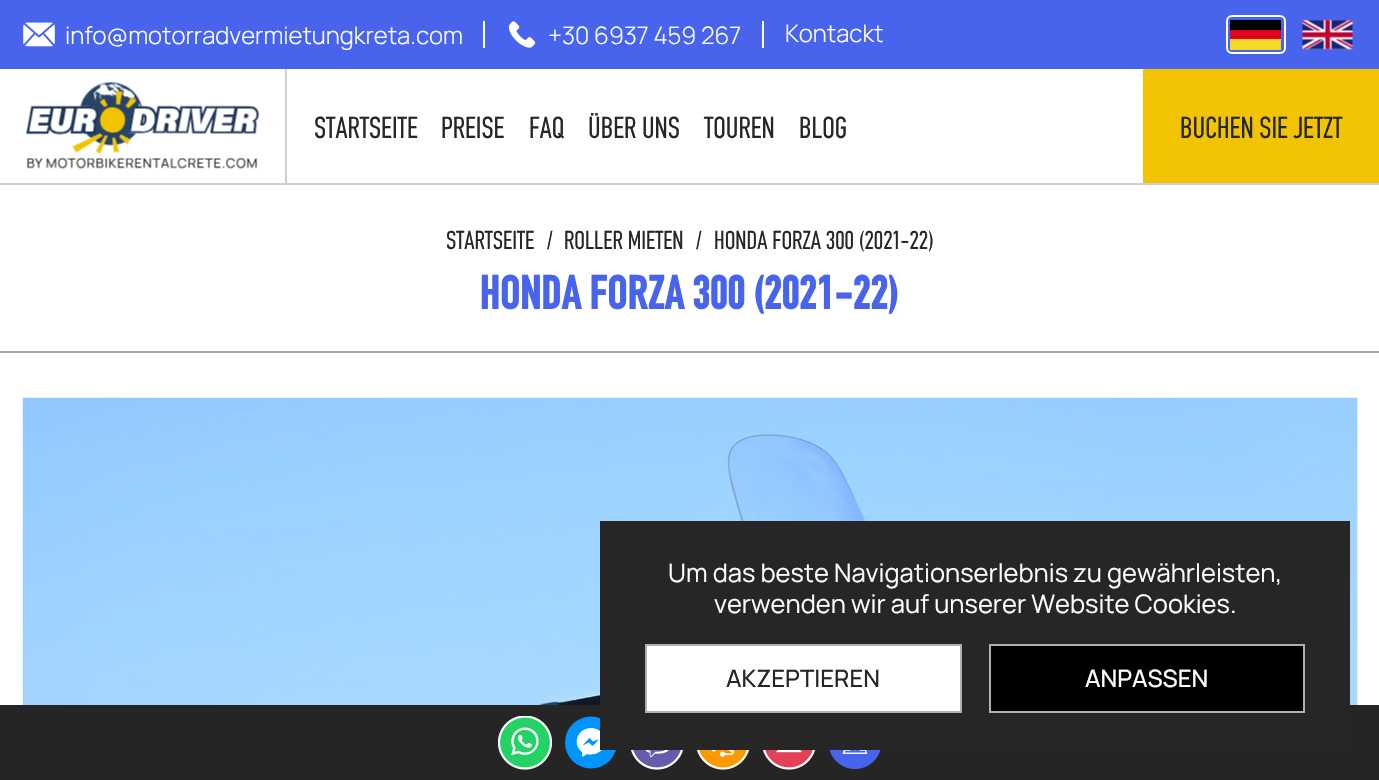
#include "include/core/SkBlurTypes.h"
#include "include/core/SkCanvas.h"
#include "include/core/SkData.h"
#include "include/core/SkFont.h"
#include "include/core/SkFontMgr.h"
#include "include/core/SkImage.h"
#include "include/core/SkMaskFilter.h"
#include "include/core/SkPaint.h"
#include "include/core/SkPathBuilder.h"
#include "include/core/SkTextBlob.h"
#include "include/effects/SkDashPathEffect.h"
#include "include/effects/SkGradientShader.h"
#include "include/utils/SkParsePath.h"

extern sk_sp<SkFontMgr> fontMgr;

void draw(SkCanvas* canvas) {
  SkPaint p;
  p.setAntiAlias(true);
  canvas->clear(SK_ColorWHITE);
  p.setColor(SkColorSetRGB(73, 100, 236));
  canvas->drawRect(SkRect::MakeLTRB(0, 0, 1379, 69), p);
  canvas->drawImageRect(SkImages::DeferredFromEncodedData(SkData::MakeFromFileName("images/1.png")), SkRect::MakeLTRB(23, 22, 55, 47), SkSamplingOptions());
  p.setColor(SK_ColorWHITE);
  canvas->drawRect(SkRect::MakeLTRB(483, 21, 485, 48), p);
  canvas->drawImageRect(SkImages::DeferredFromEncodedData(SkData::MakeFromFileName("images/2.png")), SkRect::MakeLTRB(508, 21, 536, 48), SkSamplingOptions());
  canvas->drawRect(SkRect::MakeLTRB(762, 21, 764, 48), p);
  p.setStyle(SkPaint::kStroke_Style);
  p.setStrokeWidth(2);
  canvas->drawRoundRect(SkRect::MakeLTRB(1227, 16, 1285, 53), 5, 5, p);
  p.setStyle(SkPaint::kFill_Style);
  p.setColor(SK_ColorBLACK);
  canvas->drawRect(SkRect::MakeLTRB(1230, 20, 1281, 30), p);
  p.setColor(SkColorSetRGB(225, 0, 31));
  canvas->drawRect(SkRect::MakeLTRB(1230, 30, 1281, 39), p);
  p.setColor(SkColorSetRGB(246, 217, 40));
  canvas->drawRect(SkRect::MakeLTRB(1230, 39, 1281, 50), p);
  canvas->drawImageRect(SkImages::DeferredFromEncodedData(SkData::MakeFromFileName("images/3.png")), SkRect::MakeLTRB(1302, 20, 1354, 50), SkSamplingOptions());
  p.setColor(SkColorSetRGB(207, 207, 207));
  canvas->drawRect(SkRect::MakeLTRB(0, 183, 1379, 185), p);
  canvas->drawRect(SkRect::MakeLTRB(285, 69, 287, 183), p);
  canvas->drawImageRect(SkImages::DeferredFromEncodedData(SkData::MakeFromFileName("images/4.png")), SkRect::MakeLTRB(26, 81, 260, 169), SkSamplingOptions());
  p.setColor(SkColorSetRGB(242, 195, 0));
  canvas->drawRect(SkRect::MakeLTRB(1143, 69, 1379, 183), p);
  p.setColor(SkColorSetRGB(165, 165, 165));
  canvas->drawRect(SkRect::MakeLTRB(0, 351, 1379, 353), p);
  canvas->drawImageRect(SkImages::DeferredFromEncodedData(SkData::MakeFromFileName("images/5.png")), SkRect::MakeLTRB(1357, 398, 1358, 705), SkSamplingOptions());
  canvas->drawImageRect(SkImages::DeferredFromEncodedData(SkData::MakeFromFileName("images/6.png")), SkRect::MakeLTRB(22, 397, 1358, 705), SkSamplingOptions());
  p.setColor(SkColorSetRGB(37, 37, 37));
  canvas->drawRect(SkRect::MakeLTRB(0, 705, 1379, 780), p);
  p.setColor(SkColorSetRGB(0, 148, 254));
  canvas->drawCircle(591, 742.5f, 26, p);
  p.setColor(SK_ColorWHITE);
  canvas->drawPath(SkPathBuilder().moveTo(591, 728).cubicTo(578, 728, 571.5f, 743.5f, 582, 752).cubicTo(582, 758.5f, 581, 757.5f, 587, 754).cubicTo(600.5f, 757.5f, 612, 742.5f, 601, 732).cubicTo(598.5f, 729.5f, 594.5f, 728, 591, 728).close().moveTo(592, 745.5f).lineTo(589, 742.5f).cubicTo(588, 742, 580, 748, 584, 744).lineTo(588, 739.5f).cubicTo(589.5f, 738, 589.5f, 737.5f, 590.5f, 739).lineTo(593, 741.5f).lineTo(599, 739).lineTo(596, 742.5f).cubicTo(595.5f, 743, 593, 746.5f, 592, 745.5f).close().detach(), p);
  p.setColor(SkColorSetRGB(38, 38, 38));
  canvas->drawRect(SkRect::MakeLTRB(600, 521, 1350, 750), p);
  p.setColor(SK_ColorWHITE);
  canvas->drawRect(SkRect::MakeLTRB(646, 645, 961, 712), p);
  p.setStyle(SkPaint::kStroke_Style);
  p.setColor(SkColorSetRGB(176, 176, 176));
  canvas->drawRect(SkRect::MakeLTRB(646, 645, 961, 712), p);
  p.setStyle(SkPaint::kFill_Style);
  p.setColor(SK_ColorBLACK);
  canvas->drawRect(SkRect::MakeLTRB(990, 645, 1304, 712), p);
  p.setStyle(SkPaint::kStroke_Style);
  p.setColor(SkColorSetRGB(176, 176, 176));
  canvas->drawRect(SkRect::MakeLTRB(990, 645, 1304, 712), p);
  canvas->drawImageRect(SkImages::DeferredFromEncodedData(SkData::MakeFromFileName("images/7.png")), SkRect::MakeLTRB(498, 716, 552, 770), SkSamplingOptions());
  canvas->drawImageRect(SkImages::DeferredFromEncodedData(SkData::MakeFromFileName("images/8.png")), SkRect::MakeLTRB(631, 750, 683, 770), SkSamplingOptions());
  canvas->drawImageRect(SkImages::DeferredFromEncodedData(SkData::MakeFromFileName("images/9.png")), SkRect::MakeLTRB(697, 750, 749, 770), SkSamplingOptions());
  canvas->drawImageRect(SkImages::DeferredFromEncodedData(SkData::MakeFromFileName("images/10.png")), SkRect::MakeLTRB(763, 750, 815, 770), SkSamplingOptions());
  canvas->drawImageRect(SkImages::DeferredFromEncodedData(SkData::MakeFromFileName("images/11.png")), SkRect::MakeLTRB(829, 750, 881, 769), SkSamplingOptions());
  SkFont font1(fontMgr->matchFamilyStyle("Manrope", SkFontStyle(300, SkFontStyle::kNormal_Width, SkFontStyle::kUpright_Slant)), 24);
  font1.setSubpixel(true);
  p.setStyle(SkPaint::kFill_Style);
  p.setColor(SK_ColorWHITE);
  canvas->drawString("info@motorradvermietungkreta.com", 65, 44, font1, p);
  canvas->drawString("+30 6937 459 267", 548, 44, font1, p);
  canvas->drawString("Kontackt", 785, 42, font1, p);
  SkFont font2(fontMgr->matchFamilyStyle("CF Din", SkFontStyle::Normal()), 30);
  font2.setSubpixel(true);
  p.setColor(SkColorSetRGB(38, 38, 38));
  canvas->drawString("STARTSEITE", 314, 138, font2, p);
  canvas->drawString("PREISE", 441, 138, font2, p);
  canvas->drawString("FAQ", 529, 138, font2, p);
  canvas->drawString("ÜBER UNS", 588, 138, font2, p);
  canvas->drawString("TOUREN", 704, 138, font2, p);
  canvas->drawString("BLOG", 799, 138, font2, p);
  canvas->drawString("BUCHEN SIE JETZT", 1180, 138, font2, p);
  SkFont font3(fontMgr->matchFamilyStyle("CF Din", SkFontStyle::Normal()), 25.5f);
  font3.setSubpixel(true);
  canvas->drawString("STARTSEITE", 446, 249, font3, p);
  canvas->drawString("/", 547, 249, font3, p);
  canvas->drawString("ROLLER MIETEN", 564, 249, font3, p);
  canvas->drawString("/", 696, 249, font3, p);
  canvas->drawString("HONDA FORZA 300 (2021-22)", 714, 249, font3, p);
  SkFont font4(fontMgr->matchFamilyStyle("CF Din", SkFontStyle::Bold()), 48);
  font4.setSubpixel(true);
  p.setColor(SkColorSetRGB(73, 100, 236));
  canvas->drawString("HONDA FORZA 300 (2021-22)", 480, 309, font4, p);
  SkFont font5(fontMgr->matchFamilyStyle("Manrope", SkFontStyle::Normal()), 25.5f);
  font5.setSubpixel(true);
  p.setColor(SK_ColorWHITE);
  canvas->drawString("Um das beste Navigationserlebnis zu gewährleisten,", 668, 582, font5, p);
  canvas->drawString("verwenden wir auf unserer Website Cookies.", 714, 613, font5, p);
  SkFont font6(fontMgr->matchFamilyStyle("Manrope", SkFontStyle(500, SkFontStyle::kNormal_Width, SkFontStyle::kUpright_Slant)), 24);
  font6.setSubpixel(true);
  p.setColor(SkColorSetRGB(38, 38, 38));
  canvas->drawString("AKZEPTIEREN", 726, 687, font6, p);
  p.setColor(SK_ColorWHITE);
  canvas->drawString("ANPASSEN", 1085, 687, font6, p);
}
